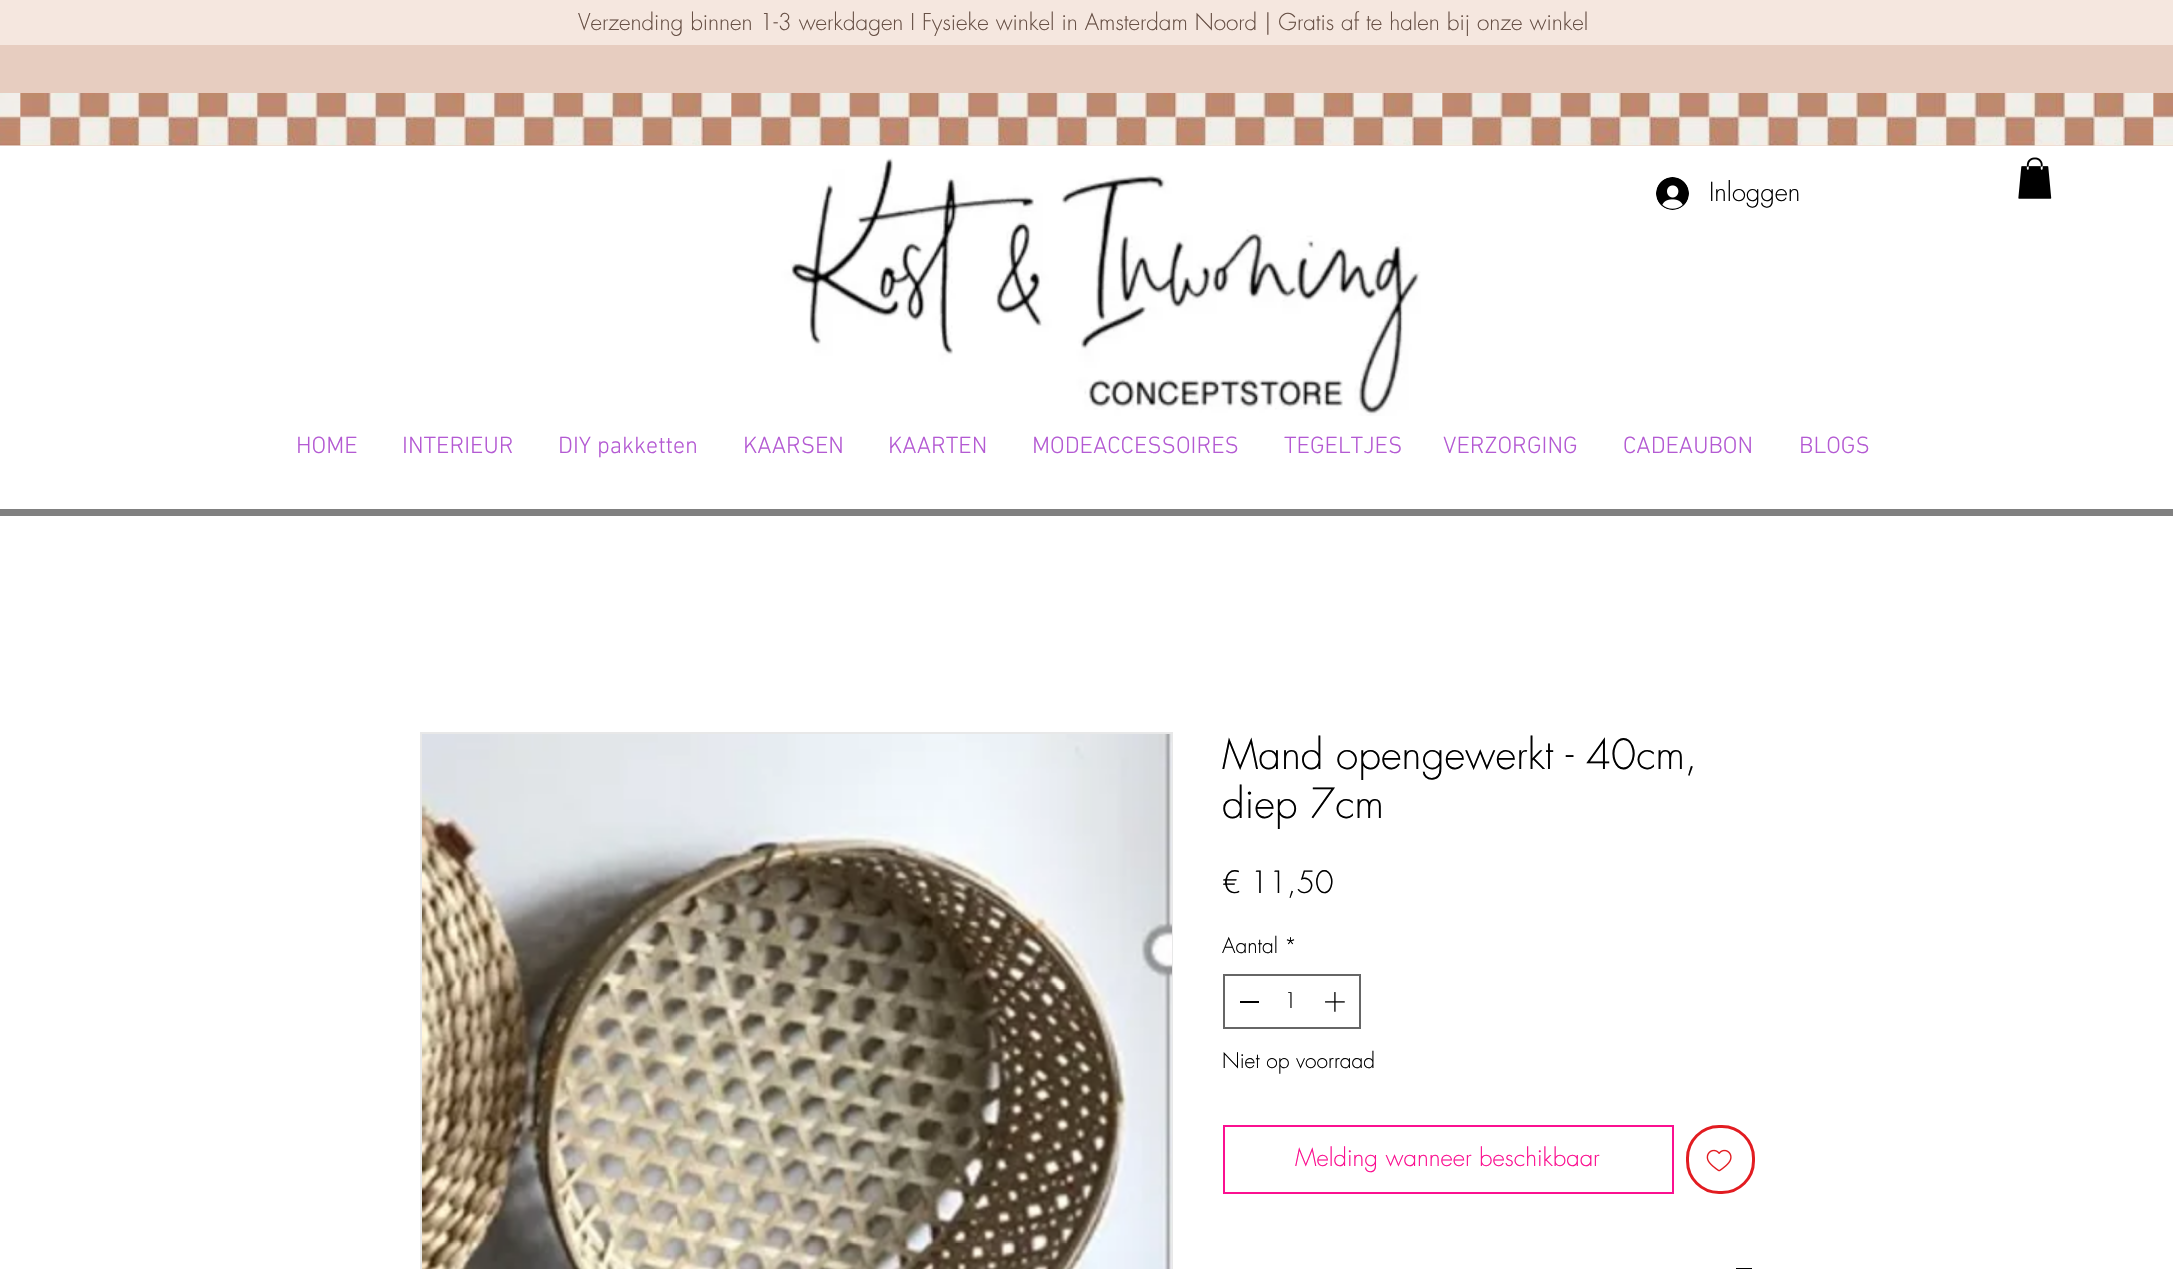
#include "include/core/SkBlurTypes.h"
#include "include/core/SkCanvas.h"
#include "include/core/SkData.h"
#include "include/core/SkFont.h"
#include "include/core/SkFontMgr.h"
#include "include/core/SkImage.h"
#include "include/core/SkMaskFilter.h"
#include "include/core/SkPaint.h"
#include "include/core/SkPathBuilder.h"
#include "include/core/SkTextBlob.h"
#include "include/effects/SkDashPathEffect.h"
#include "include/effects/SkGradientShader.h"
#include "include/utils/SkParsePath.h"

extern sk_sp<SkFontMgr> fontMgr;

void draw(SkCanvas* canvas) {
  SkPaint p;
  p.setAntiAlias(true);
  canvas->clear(SK_ColorWHITE);
  p.setColor(SkColorSetRGB(245, 231, 223));
  canvas->drawRect(SkRect::MakeLTRB(0, 0, 2173, 45), p);
  p.setColor(SkColorSetRGB(231, 205, 192));
  canvas->drawRect(SkRect::MakeLTRB(0, 45, 2173, 93), p);
  p.setColor(SkColorSetRGB(237, 217, 207));
  canvas->drawRect(SkRect::MakeLTRB(0, 93, 2173, 146), p);
  canvas->drawImageRect(SkImages::DeferredFromEncodedData(SkData::MakeFromFileName("images/1.png")), SkRect::MakeLTRB(0, 93, 2173, 146), SkSamplingOptions());
  canvas->drawImageRect(SkImages::DeferredFromEncodedData(SkData::MakeFromFileName("images/2.png")), SkRect::MakeLTRB(641, 145, 1533, 416), SkSamplingOptions());
  canvas->drawImageRect(SkImages::DeferredFromEncodedData(SkData::MakeFromFileName("images/3.png")), SkRect::MakeLTRB(1656, 177, 1689, 210), SkSamplingOptions());
  p.setColor(SkColorSetRGB(128, 128, 128));
  canvas->drawRect(SkRect::MakeLTRB(0, 509, 2173, 516), p);
  canvas->drawImageRect(SkImages::DeferredFromEncodedData(SkData::MakeFromFileName("images/4.png")), SkRect::MakeLTRB(2018, 157, 2052, 199), SkSamplingOptions());
  p.setStyle(SkPaint::kStroke_Style);
  p.setStrokeWidth(2);
  p.setColor(SkColorSetRGB(232, 232, 232));
  canvas->drawRect(SkRect::MakeLTRB(421, 733, 1172, 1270), p);
  canvas->drawImageRect(SkImages::DeferredFromEncodedData(SkData::MakeFromFileName("images/5.png")), SkRect::MakeLTRB(422, 734, 1172, 1269), SkSamplingOptions());
  p.setColor(SkColorSetRGB(102, 102, 102));
  canvas->drawRect(SkRect::MakeLTRB(1224, 975, 1360, 1028), p);
  p.setStyle(SkPaint::kFill_Style);
  p.setColor(SK_ColorBLACK);
  canvas->drawRect(SkRect::MakeLTRB(1240, 1001, 1259, 1003), p);
  canvas->drawImageRect(SkImages::DeferredFromEncodedData(SkData::MakeFromFileName("images/6.png")), SkRect::MakeLTRB(1325, 992, 1345, 1012), SkSamplingOptions());
  p.setStyle(SkPaint::kStroke_Style);
  p.setColor(SkColorSetRGB(251, 16, 144));
  canvas->drawRect(SkRect::MakeLTRB(1224, 1126, 1673, 1193), p);
  p.setStrokeWidth(3);
  p.setColor(SkColorSetRGB(226, 28, 33));
  canvas->drawRoundRect(SkRect::MakeLTRB(1687.5f, 1126.5f, 1753.5f, 1192.5f), 31.5f, 31.5f, p);
  canvas->drawImageRect(SkImages::DeferredFromEncodedData(SkData::MakeFromFileName("images/7.png")), SkRect::MakeLTRB(1706, 1149, 1732, 1172), SkSamplingOptions());
  p.setStyle(SkPaint::kFill_Style);
  p.setColor(SK_ColorBLACK);
  canvas->drawRect(SkRect::MakeLTRB(1736, 1268, 1752, 1269), p);
  SkFont font1(fontMgr->matchFamilyStyle("futura", SkFontStyle(300, SkFontStyle::kNormal_Width, SkFontStyle::kUpright_Slant)), 22.5f);
  font1.setSubpixel(true);
  p.setColor(SkColorSetRGB(103, 80, 69));
  canvas->drawString("Verzending binnen 1-3 werkdagen I Fysieke winkel in Amsterdam Noord | Gratis af te halen bij onze winkel", 578, 30, font1, p);
  SkFont font2(fontMgr->matchFamilyStyle("futura", SkFontStyle(300, SkFontStyle::kNormal_Width, SkFontStyle::kUpright_Slant)), 25.5f);
  font2.setSubpixel(true);
  p.setColor(SK_ColorBLACK);
  canvas->drawString("Inloggen", 1709, 201, font2, p);
  SkFont font3(fontMgr->matchFamilyStyle("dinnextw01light", SkFontStyle(300, SkFontStyle::kNormal_Width, SkFontStyle::kUpright_Slant)), 24);
  font3.setSubpixel(true);
  p.setColor(SkColorSetRGB(180, 90, 211));
  canvas->drawString("HOME", 296, 453, font3, p);
  canvas->drawString("INTERIEUR", 402, 453, font3, p);
  canvas->drawString("DIY pakketten", 558, 453, font3, p);
  canvas->drawString("KAARSEN", 743, 453, font3, p);
  canvas->drawString("KAARTEN", 888, 453, font3, p);
  canvas->drawString("MODEACCESSOIRES", 1032, 453, font3, p);
  canvas->drawString("TEGELTJES", 1284, 453, font3, p);
  canvas->drawString("VERZORGING", 1443, 453, font3, p);
  canvas->drawString("CADEAUBON", 1623, 453, font3, p);
  canvas->drawString("BLOGS", 1799, 453, font3, p);
  SkFont font4(fontMgr->matchFamilyStyle("futura", SkFontStyle(300, SkFontStyle::kNormal_Width, SkFontStyle::kUpright_Slant)), 40.5f);
  font4.setSubpixel(true);
  p.setColor(SK_ColorBLACK);
  canvas->drawString("Mand opengewerkt - 40cm,", 1222, 769, font4, p);
  canvas->drawString("diep 7cm", 1222, 818, font4, p);
  SkFont font5(fontMgr->matchFamilyStyle("futura", SkFontStyle(300, SkFontStyle::kNormal_Width, SkFontStyle::kUpright_Slant)), 30);
  font5.setSubpixel(true);
  canvas->drawString("€ 11,50", 1222, 893, font5, p);
  SkFont font6(fontMgr->matchFamilyStyle("futura", SkFontStyle(300, SkFontStyle::kNormal_Width, SkFontStyle::kUpright_Slant)), 21);
  font6.setSubpixel(true);
  canvas->drawString("Aantal", 1222, 953, font6, p);
  canvas->drawString("*", 1284, 953, font6, p);
  canvas->drawString("1", 1284, 1008, font6, p);
  canvas->drawString("Niet op voorraad", 1222, 1068, font6, p);
  SkFont font7(fontMgr->matchFamilyStyle("futura", SkFontStyle(300, SkFontStyle::kNormal_Width, SkFontStyle::kUpright_Slant)), 24);
  font7.setSubpixel(true);
  p.setColor(SkColorSetRGB(251, 16, 144));
  canvas->drawString("Melding wanneer beschikbaar", 1295, 1166, font7, p);
}
